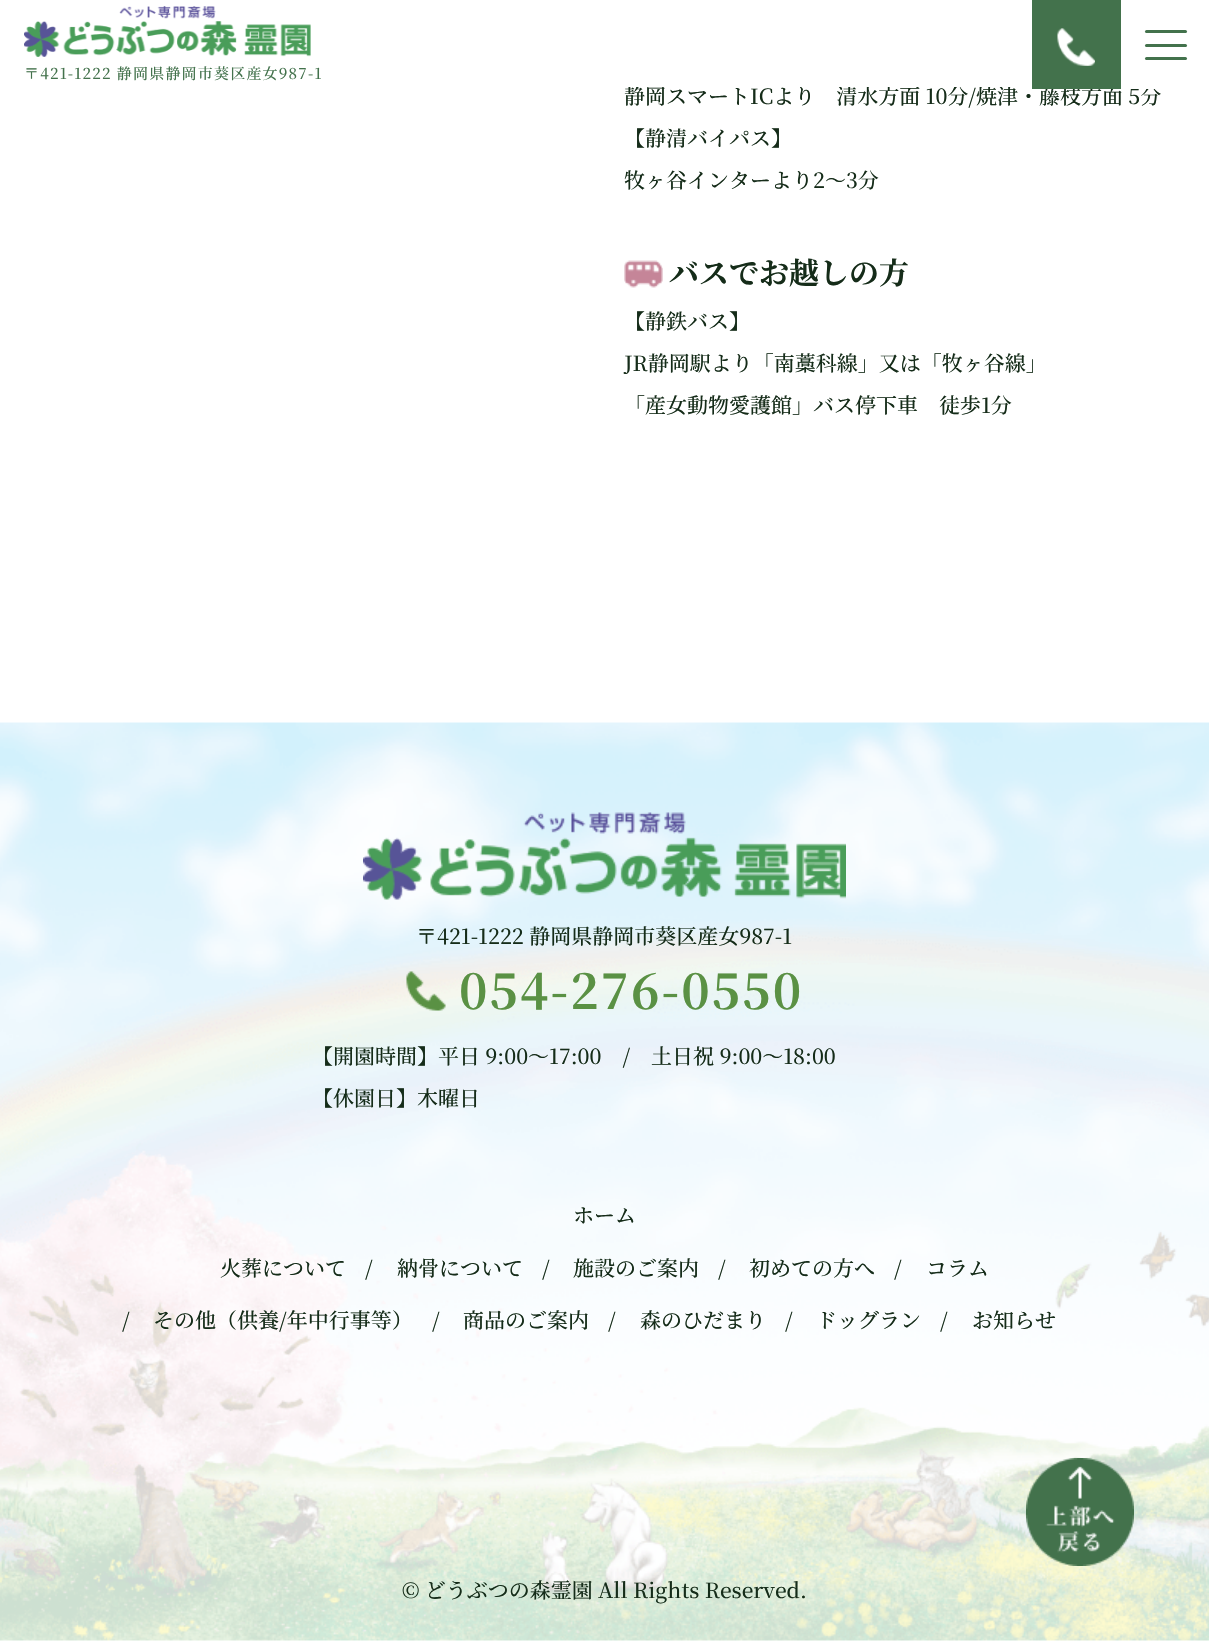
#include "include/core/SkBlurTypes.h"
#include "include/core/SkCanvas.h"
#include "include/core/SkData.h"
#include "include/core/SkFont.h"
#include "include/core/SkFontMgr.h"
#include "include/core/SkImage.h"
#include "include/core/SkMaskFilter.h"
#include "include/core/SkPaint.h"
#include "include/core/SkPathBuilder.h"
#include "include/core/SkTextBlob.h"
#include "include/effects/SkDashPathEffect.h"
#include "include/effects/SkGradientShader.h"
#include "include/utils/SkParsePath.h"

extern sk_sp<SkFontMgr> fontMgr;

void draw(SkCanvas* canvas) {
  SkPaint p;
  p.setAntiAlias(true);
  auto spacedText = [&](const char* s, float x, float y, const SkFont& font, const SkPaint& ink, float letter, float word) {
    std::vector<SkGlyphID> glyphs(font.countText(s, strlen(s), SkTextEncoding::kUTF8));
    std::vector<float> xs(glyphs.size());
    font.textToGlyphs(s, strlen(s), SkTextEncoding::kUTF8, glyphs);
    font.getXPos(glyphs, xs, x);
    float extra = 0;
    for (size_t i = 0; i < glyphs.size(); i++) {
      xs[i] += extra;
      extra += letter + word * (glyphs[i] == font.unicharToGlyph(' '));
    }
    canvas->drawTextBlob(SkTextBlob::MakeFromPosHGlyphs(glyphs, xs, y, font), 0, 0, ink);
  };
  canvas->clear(SK_ColorWHITE);
  canvas->drawImageRect(SkImages::DeferredFromEncodedData(SkData::MakeFromFileName("images/1.png")), SkRect::MakeLTRB(24, 6, 311, 57), SkSamplingOptions());
  p.setColor(SkColorSetRGB(67, 114, 76));
  canvas->drawRoundRect(SkRect::MakeLTRB(1145, 30, 1187, 33), 1.5f, 1.5f, p);
  canvas->drawRoundRect(SkRect::MakeLTRB(1145, 44, 1187, 47), 1.5f, 1.5f, p);
  canvas->drawRoundRect(SkRect::MakeLTRB(1145, 57, 1187, 60), 1.5f, 1.5f, p);
  canvas->drawImageRect(SkImages::DeferredFromEncodedData(SkData::MakeFromFileName("images/3.png")), SkRect::MakeLTRB(624, 260, 663, 288), SkSamplingOptions());
  canvas->drawImageRect(SkImages::DeferredFromEncodedData(SkData::MakeFromFileName("images/4.png")), SkRect::MakeLTRB(0, 722, 1209, 1641), SkSamplingOptions());
  canvas->drawImageRect(SkImages::DeferredFromEncodedData(SkData::MakeFromFileName("images/5.png")), SkRect::MakeLTRB(363, 812, 846, 900), SkSamplingOptions());
  canvas->drawImageRect(SkImages::DeferredFromEncodedData(SkData::MakeFromFileName("images/6.png")), SkRect::MakeLTRB(406, 971, 446, 1011), SkSamplingOptions());
  canvas->drawImageRect(SkImages::DeferredFromEncodedData(SkData::MakeFromFileName("images/7.png")), SkRect::MakeLTRB(1026, 1458, 1134, 1566), SkSamplingOptions());
  SkFont font1(fontMgr->matchFamilyStyle("Noto Serif JP", SkFontStyle(500, SkFontStyle::kNormal_Width, SkFontStyle::kUpright_Slant)), 15);
  font1.setSubpixel(true);
  spacedText("〒421-1222 静岡県静岡市葵区産女987-1", 24, 79, font1, p, 1.2f, 0);
  SkFont font2(fontMgr->matchFamilyStyle("Noto Serif JP", SkFontStyle(500, SkFontStyle::kNormal_Width, SkFontStyle::kUpright_Slant)), 21);
  font2.setSubpixel(true);
  p.setColor(SkColorSetRGB(21, 44, 25));
  canvas->drawString("静岡スマートICより　清水方面 10分/焼津・藤枝方面 5分", 624, 104, font2, p);
  p.setColor(SK_ColorWHITE);
  canvas->drawRect(SkRect::MakeLTRB(1121, 86, 1155, 89), p);
  p.setColor(SkColorSetRGB(67, 114, 76));
  canvas->drawRect(SkRect::MakeLTRB(1032, 0, 1121, 89), p);
  canvas->drawImageRect(SkImages::DeferredFromEncodedData(SkData::MakeFromFileName("images/2.png")), SkRect::MakeLTRB(1057, 28, 1095, 66), SkSamplingOptions());
  p.setColor(SK_ColorWHITE);
  canvas->drawRect(SkRect::MakeLTRB(628, 86, 1011, 87), p);
  p.setColor(SkColorSetRGB(21, 44, 25));
  canvas->drawString("【静清バイパス】", 624, 146, font2, p);
  canvas->drawString("牧ヶ谷インターより2～3分", 624, 188, font2, p);
  SkFont font3(fontMgr->matchFamilyStyle("Noto Serif JP", SkFontStyle::Bold()), 30);
  font3.setSubpixel(true);
  canvas->drawString("バスでお越しの方", 669, 284, font3, p);
  canvas->drawString("【静鉄バス】", 624, 329, font2, p);
  canvas->drawString("JR静岡駅より「南藁科線」又は「牧ヶ谷線」", 624, 371, font2, p);
  canvas->drawString("「産女動物愛護館」バス停下車　徒歩1分", 624, 413, font2, p);
  canvas->drawString("〒421-1222 静岡県静岡市葵区産女987-1", 416, 944, font2, p);
  SkFont font4(fontMgr->matchFamilyStyle("Noto Serif JP", SkFontStyle::Bold()), 48);
  font4.setSubpixel(true);
  p.setColor(SkColorSetRGB(90, 145, 68));
  spacedText("054-276-0550", 459, 1009, font4, p, 2, 0);
  p.setColor(SkColorSetRGB(21, 44, 25));
  canvas->drawString("【開園時間】平日 9:00〜17:00　/　土日祝 9:00〜18:00", 312, 1064, font2, p);
  canvas->drawString("【休園日】木曜日", 312, 1106, font2, p);
  canvas->drawString("ホーム", 573, 1223, font2, p);
  canvas->drawString("火葬について", 220, 1276, font2, p);
  canvas->drawString("/", 365, 1276, font2, p);
  canvas->drawString("納骨について", 397, 1276, font2, p);
  canvas->drawString("/", 542, 1276, font2, p);
  canvas->drawString("施設のご案内", 573, 1276, font2, p);
  canvas->drawString("/", 718, 1276, font2, p);
  canvas->drawString("初めての方へ", 749, 1276, font2, p);
  canvas->drawString("/", 894, 1276, font2, p);
  canvas->drawString("コラム", 926, 1276, font2, p);
  canvas->drawString("/", 122, 1328, font2, p);
  canvas->drawString("その他（供養/年中行事等）", 153, 1328, font2, p);
  canvas->drawString("/", 432, 1328, font2, p);
  canvas->drawString("商品のご案内", 463, 1328, font2, p);
  canvas->drawString("/", 608, 1328, font2, p);
  canvas->drawString("森のひだまり", 640, 1328, font2, p);
  canvas->drawString("/", 785, 1328, font2, p);
  canvas->drawString("ドッグラン", 816, 1328, font2, p);
  canvas->drawString("/", 940, 1328, font2, p);
  canvas->drawString("お知らせ", 972, 1328, font2, p);
  canvas->drawString("© どうぶつの森霊園 All Rights Reserved.", 402, 1598, font2, p);
}
